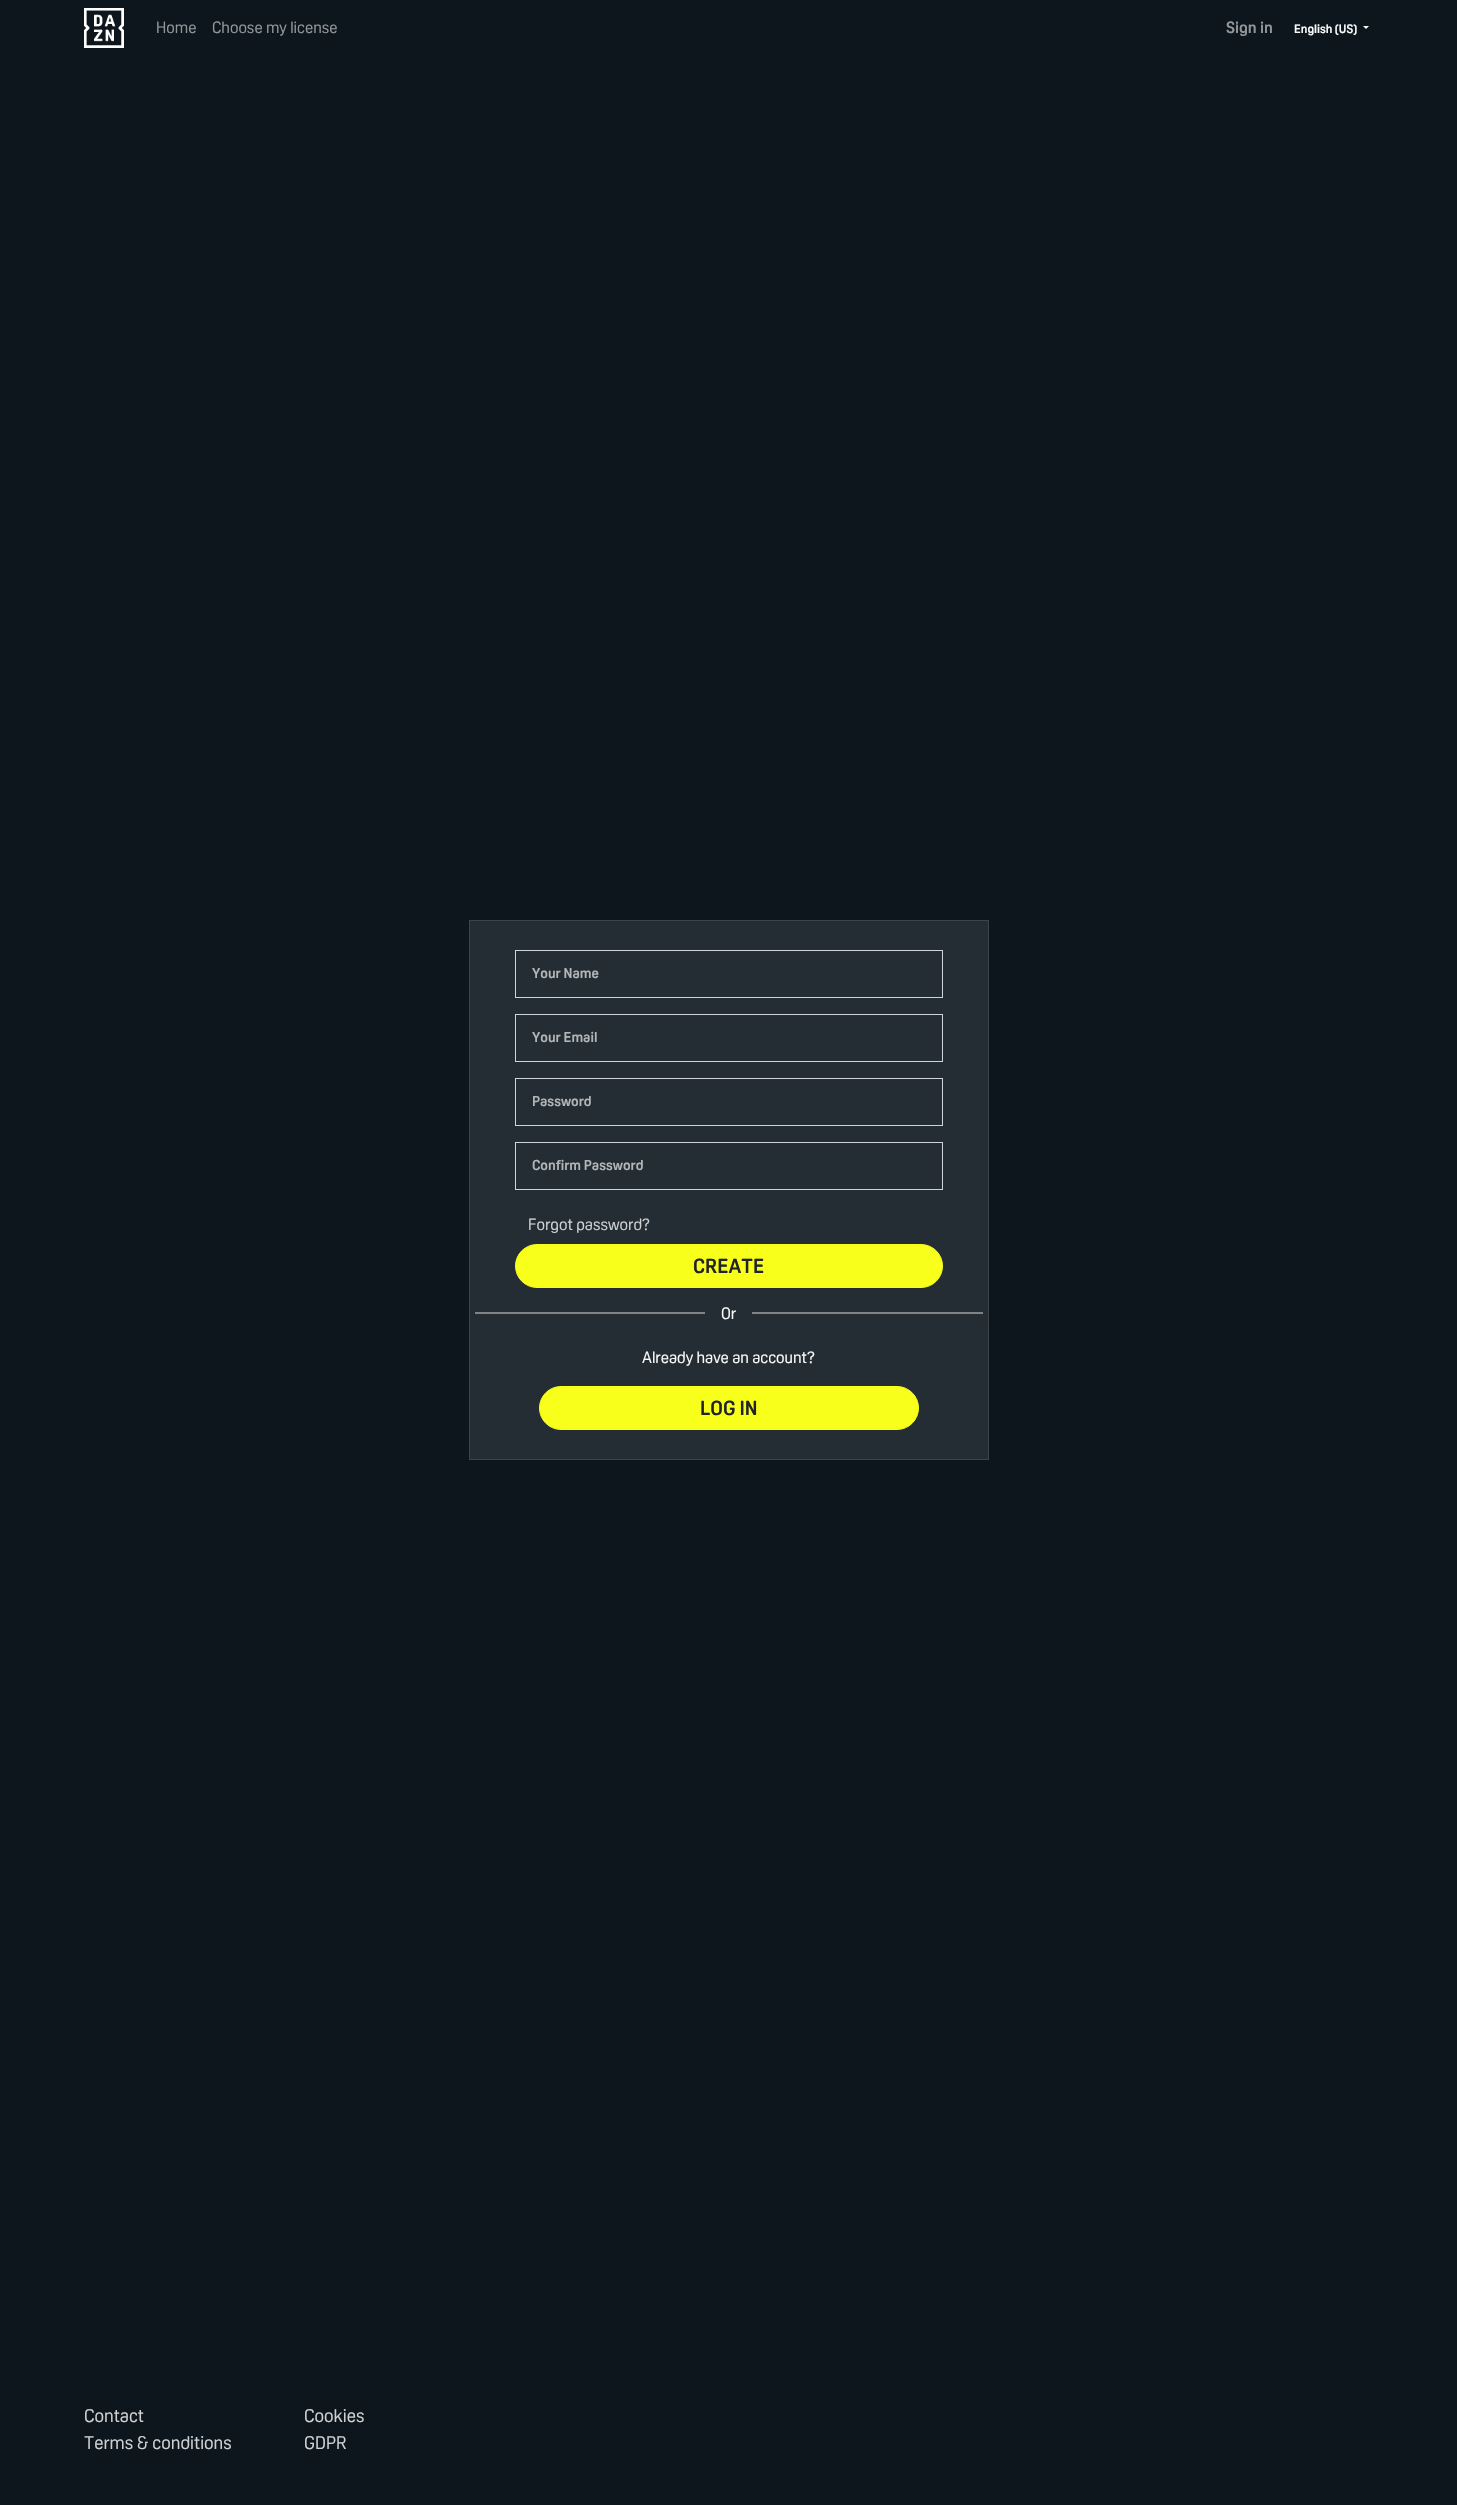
#include "include/core/SkBlurTypes.h"
#include "include/core/SkCanvas.h"
#include "include/core/SkData.h"
#include "include/core/SkFont.h"
#include "include/core/SkFontMgr.h"
#include "include/core/SkImage.h"
#include "include/core/SkMaskFilter.h"
#include "include/core/SkPaint.h"
#include "include/core/SkPathBuilder.h"
#include "include/core/SkTextBlob.h"
#include "include/effects/SkDashPathEffect.h"
#include "include/effects/SkGradientShader.h"
#include "include/utils/SkParsePath.h"

extern sk_sp<SkFontMgr> fontMgr;

void draw(SkCanvas* canvas) {
  SkPaint p;
  p.setAntiAlias(true);
  canvas->clear(SkColorSetRGB(12, 22, 28));
  canvas->drawImageRect(SkImages::DeferredFromEncodedData(SkData::MakeFromFileName("images/1.png")), SkRect::MakeLTRB(84, 8, 124, 48), SkSamplingOptions());
  p.setColor(SkColorSetRGB(249, 250, 250));
  canvas->drawPath(SkPathBuilder().moveTo(1363, 26).lineTo(1369, 26).lineTo(1366, 29).close().detach(), p);
  p.setColor(SkColorSetRGB(36, 45, 51));
  canvas->drawRect(SkRect::MakeLTRB(469.5f, 920.5f, 988.5f, 1459.5f), p);
  p.setStyle(SkPaint::kStroke_Style);
  p.setStrokeWidth(1);
  p.setColor(SkColorSetRGB(61, 68, 73));
  canvas->drawRect(SkRect::MakeLTRB(469.5f, 920.5f, 988.5f, 1459.5f), p);
  p.setColor(SkColorSetRGB(206, 212, 218));
  canvas->drawRect(SkRect::MakeLTRB(515.5f, 950.5f, 942.5f, 997.5f), p);
  canvas->drawRect(SkRect::MakeLTRB(515.5f, 1014.5f, 942.5f, 1061.5f), p);
  canvas->drawRect(SkRect::MakeLTRB(515.5f, 1078.5f, 942.5f, 1125.5f), p);
  canvas->drawRect(SkRect::MakeLTRB(515.5f, 1142.5f, 942.5f, 1189.5f), p);
  p.setStyle(SkPaint::kFill_Style);
  p.setColor(SkColorSetRGB(247, 255, 26));
  canvas->drawRoundRect(SkRect::MakeLTRB(515.5f, 1244.5f, 942.5f, 1287.5f), 21.5f, 21.5f, p);
  p.setStyle(SkPaint::kStroke_Style);
  canvas->drawRoundRect(SkRect::MakeLTRB(515.5f, 1244.5f, 942.5f, 1287.5f), 21.5f, 21.5f, p);
  p.setStyle(SkPaint::kFill_Style);
  p.setColor(SkColorSetRGB(128, 131, 133));
  canvas->drawRect(SkRect::MakeLTRB(475, 1312, 983, 1314), p);
  p.setColor(SkColorSetRGB(36, 45, 51));
  canvas->drawRect(SkRect::MakeLTRB(705, 1312, 752, 1314), p);
  p.setColor(SkColorSetRGB(247, 255, 26));
  canvas->drawRoundRect(SkRect::MakeLTRB(539.5f, 1386.5f, 918.5f, 1429.5f), 21.5f, 21.5f, p);
  p.setStyle(SkPaint::kStroke_Style);
  canvas->drawRoundRect(SkRect::MakeLTRB(539.5f, 1386.5f, 918.5f, 1429.5f), 21.5f, 21.5f, p);
  SkFont font1(fontMgr->matchFamilyStyle("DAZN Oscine", SkFontStyle::Normal()), 16);
  font1.setSubpixel(true);
  p.setStyle(SkPaint::kFill_Style);
  p.setColor(SkColorSetRGB(146, 150, 153));
  canvas->drawString("Home", 156, 33, font1, p);
  canvas->drawString("Choose my license", 212, 33, font1, p);
  SkFont font2(fontMgr->matchFamilyStyle("DAZN Oscine", SkFontStyle::Bold()), 16);
  font2.setSubpixel(true);
  canvas->drawString("Sign in", 1226, 33, font2, p);
  SkFont font3(fontMgr->matchFamilyStyle("DAZN Oscine", SkFontStyle::Bold()), 12);
  font3.setSubpixel(true);
  p.setColor(SkColorSetRGB(249, 250, 250));
  canvas->drawString("English (US)", 1294, 33, font3, p);
  SkFont font4(fontMgr->matchFamilyStyle("DAZN Oscine", SkFontStyle::Bold()), 14);
  font4.setSubpixel(true);
  p.setColor(SkColorSetRGB(178, 182, 184));
  canvas->drawString("Your Name", 532, 978, font4, p);
  canvas->drawString("Your Email", 532, 1042, font4, p);
  canvas->drawString("Password", 532, 1106, font4, p);
  canvas->drawString("Confirm Password", 532, 1170, font4, p);
  p.setColor(SkColorSetRGB(206, 208, 210));
  canvas->drawString("Forgot password?", 528, 1230, font1, p);
  SkFont font5(fontMgr->matchFamilyStyle("DAZN Oscine", SkFontStyle::Bold()), 20);
  font5.setSubpixel(true);
  p.setColor(SkColorSetRGB(33, 37, 41));
  canvas->drawString("CREATE", 693, 1273, font5, p);
  p.setColor(SkColorSetRGB(249, 250, 250));
  canvas->drawString("Or", 721, 1319, font1, p);
  canvas->drawString("Already have an account?", 642, 1363, font1, p);
  p.setColor(SkColorSetRGB(33, 37, 41));
  canvas->drawString("LOG IN", 700, 1415, font5, p);
  SkFont font6(fontMgr->matchFamilyStyle("DAZN Oscine", SkFontStyle::Normal()), 18);
  font6.setSubpixel(true);
  p.setColor(SkColorSetRGB(206, 208, 210));
  canvas->drawString("Contact", 84, 2422, font6, p);
  canvas->drawString("Terms & conditions", 84, 2449, font6, p);
  canvas->drawString("Cookies", 304, 2422, font6, p);
  canvas->drawString("GDPR", 304, 2449, font6, p);
}
